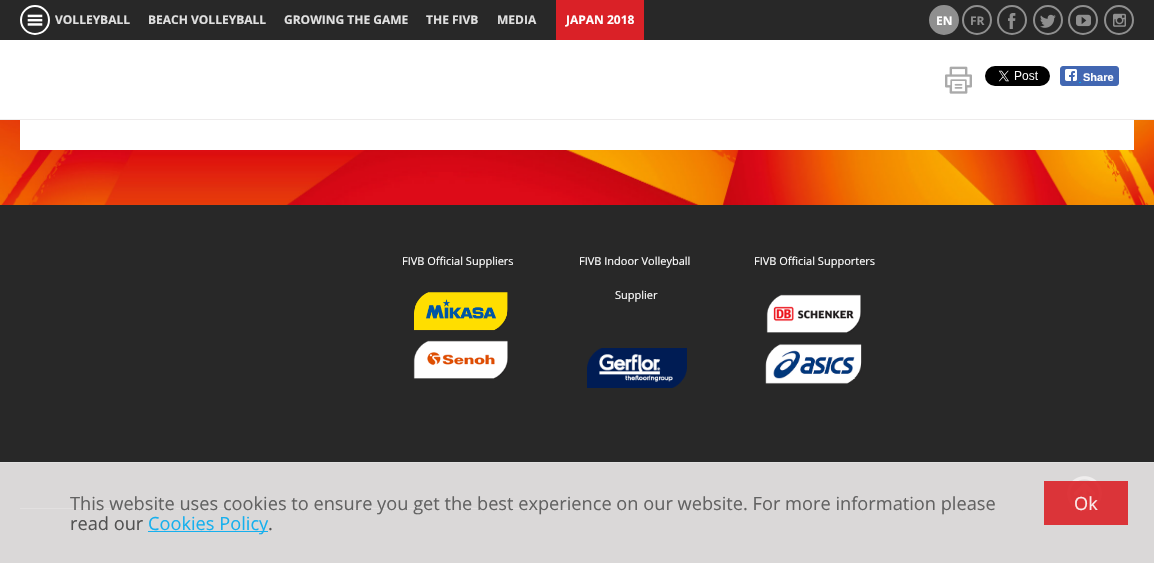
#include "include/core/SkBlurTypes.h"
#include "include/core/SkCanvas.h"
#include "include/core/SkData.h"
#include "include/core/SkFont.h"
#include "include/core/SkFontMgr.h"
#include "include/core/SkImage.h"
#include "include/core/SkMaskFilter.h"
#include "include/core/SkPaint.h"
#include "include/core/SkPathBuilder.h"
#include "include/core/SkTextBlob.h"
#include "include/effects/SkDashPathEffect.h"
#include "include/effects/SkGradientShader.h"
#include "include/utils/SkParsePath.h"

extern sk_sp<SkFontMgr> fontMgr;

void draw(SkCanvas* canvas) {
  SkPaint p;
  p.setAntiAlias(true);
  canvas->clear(SK_ColorWHITE);
  canvas->drawImageRect(SkImages::DeferredFromEncodedData(SkData::MakeFromFileName("images/1.png")), SkRect::MakeLTRB(0, 120, 1154, 205), SkSamplingOptions());
  p.setColor(SkColorSetRGB(40, 40, 40));
  canvas->drawRect(SkRect::MakeLTRB(0, 0, 1154, 40), p);
  p.setStyle(SkPaint::kStroke_Style);
  p.setStrokeWidth(2);
  p.setColor(SK_ColorWHITE);
  canvas->drawCircle(35, 20, 14, p);
  canvas->drawImageRect(SkImages::DeferredFromEncodedData(SkData::MakeFromFileName("images/2.png")), SkRect::MakeLTRB(27, 14, 43, 26), SkSamplingOptions());
  p.setStyle(SkPaint::kFill_Style);
  p.setColor(SkColorSetRGB(218, 33, 39));
  canvas->drawRect(SkRect::MakeLTRB(556, 0, 644, 40), p);
  p.setColor(SkColorSetRGB(143, 143, 143));
  canvas->drawCircle(944, 20, 14, p);
  p.setStyle(SkPaint::kStroke_Style);
  canvas->drawCircle(944, 20, 14, p);
  canvas->drawCircle(977, 20, 14, p);
  canvas->drawCircle(1012, 20, 14, p);
  canvas->drawImageRect(SkImages::DeferredFromEncodedData(SkData::MakeFromFileName("images/3.png")), SkRect::MakeLTRB(1008, 13, 1016, 29), SkSamplingOptions());
  canvas->drawCircle(1048, 20, 14, p);
  canvas->drawImageRect(SkImages::DeferredFromEncodedData(SkData::MakeFromFileName("images/4.png")), SkRect::MakeLTRB(1040, 14, 1056, 28), SkSamplingOptions());
  canvas->drawCircle(1083, 20, 14, p);
  canvas->drawImageRect(SkImages::DeferredFromEncodedData(SkData::MakeFromFileName("images/5.png")), SkRect::MakeLTRB(1076, 14, 1091, 27), SkSamplingOptions());
  canvas->drawCircle(1119, 20, 14, p);
  canvas->drawImageRect(SkImages::DeferredFromEncodedData(SkData::MakeFromFileName("images/6.png")), SkRect::MakeLTRB(1113, 13, 1126, 27), SkSamplingOptions());
  p.setStyle(SkPaint::kFill_Style);
  p.setColor(SkColorSetRGB(237, 235, 235));
  canvas->drawRect(SkRect::MakeLTRB(0, 119, 1154, 120), p);
  canvas->drawImageRect(SkImages::DeferredFromEncodedData(SkData::MakeFromFileName("images/7.png")), SkRect::MakeLTRB(945, 66, 972, 94), SkSamplingOptions());
  canvas->drawImageRect(SkImages::DeferredFromEncodedData(SkData::MakeFromFileName("images/8.png")), SkRect::MakeLTRB(985, 66, 1050, 86), SkSamplingOptions());
  p.setColor(SkColorSetRGB(66, 103, 178));
  canvas->drawRoundRect(SkRect::MakeLTRB(1060.5f, 66.5f, 1118.5f, 85.5f), 2.5f, 2.5f, p);
  p.setStyle(SkPaint::kStroke_Style);
  p.setStrokeWidth(1);
  canvas->drawRoundRect(SkRect::MakeLTRB(1060.5f, 66.5f, 1118.5f, 85.5f), 2.5f, 2.5f, p);
  canvas->drawImageRect(SkImages::DeferredFromEncodedData(SkData::MakeFromFileName("images/9.png")), SkRect::MakeLTRB(1065, 69, 1077, 81), SkSamplingOptions());
  p.setStyle(SkPaint::kFill_Style);
  p.setColor(SkColorSetRGB(0, 171, 240));
  canvas->drawRect(SkRect::MakeLTRB(1079, 82, 1081, 83), p);
  p.setColor(SK_ColorWHITE);
  canvas->drawRect(SkRect::MakeLTRB(20, 120, 1134, 150), p);
  p.setColor(SkColorSetRGB(40, 40, 40));
  canvas->drawRect(SkRect::MakeLTRB(0, 205, 1154, 563), p);
  canvas->drawImageRect(SkImages::DeferredFromEncodedData(SkData::MakeFromFileName("images/10.png")), SkRect::MakeLTRB(414, 292, 508, 331), SkSamplingOptions());
  canvas->drawImageRect(SkImages::DeferredFromEncodedData(SkData::MakeFromFileName("images/11.png")), SkRect::MakeLTRB(413, 340, 509, 379), SkSamplingOptions());
  canvas->drawImageRect(SkImages::DeferredFromEncodedData(SkData::MakeFromFileName("images/12.png")), SkRect::MakeLTRB(587, 348, 687, 388), SkSamplingOptions());
  canvas->drawImageRect(SkImages::DeferredFromEncodedData(SkData::MakeFromFileName("images/13.png")), SkRect::MakeLTRB(766, 294, 862, 333), SkSamplingOptions());
  canvas->drawImageRect(SkImages::DeferredFromEncodedData(SkData::MakeFromFileName("images/14.png")), SkRect::MakeLTRB(765, 344, 862, 384), SkSamplingOptions());
  p.setColor(SkColorSetRGB(117, 117, 117));
  canvas->drawRect(SkRect::MakeLTRB(20, 508, 146, 509), p);
  canvas->drawRect(SkRect::MakeLTRB(176, 508, 287, 509), p);
  canvas->drawRect(SkRect::MakeLTRB(317, 508, 429, 509), p);
  canvas->drawRect(SkRect::MakeLTRB(459, 508, 570, 509), p);
  canvas->drawImageRect(SkImages::DeferredFromEncodedData(SkData::MakeFromFileName("images/15.png")), SkRect::MakeLTRB(1067, 476, 1102, 512), SkSamplingOptions());
  p.setColor(SkColorSetARGB(230, 237, 235, 235));
  canvas->drawRect(SkRect::MakeLTRB(0, 463, 1154, 563), p);
  p.setColor(SkColorSetRGB(225, 225, 225));
  canvas->drawRect(SkRect::MakeLTRB(0, 462, 1154, 463), p);
  p.setColor(SkColorSetARGB(230, 0, 171, 240));
  canvas->drawRect(SkRect::MakeLTRB(148, 531, 268, 532), p);
  p.setColor(SkColorSetARGB(230, 218, 33, 39));
  canvas->drawRect(SkRect::MakeLTRB(1044, 481, 1128, 525), p);
  SkFont font1(fontMgr->matchFamilyStyle("Open Sans", SkFontStyle::Bold()), 12);
  font1.setSubpixel(true);
  p.setColor(SkColorSetRGB(224, 224, 224));
  canvas->drawString("VOLLEYBALL", 55, 24, font1, p);
  canvas->drawString("BEACH VOLLEYBALL", 148, 24, font1, p);
  canvas->drawString("GROWING THE GAME", 284, 24, font1, p);
  canvas->drawString("THE FIVB", 426, 24, font1, p);
  canvas->drawString("MEDIA", 497, 24, font1, p);
  p.setColor(SK_ColorWHITE);
  canvas->drawString("JAPAN 2018", 566, 24, font1, p);
  canvas->drawString("EN", 936, 25, font1, p);
  p.setColor(SkColorSetRGB(143, 143, 143));
  canvas->drawString("FR", 970, 25, font1, p);
  SkFont font2(fontMgr->matchFamilyStyle("Liberation Sans", SkFontStyle::Bold()), 11);
  font2.setSubpixel(true);
  p.setColor(SK_ColorWHITE);
  canvas->drawString("Share", 1083, 81, font2, p);
  SkFont font3(fontMgr->matchFamilyStyle("Open Sans", SkFontStyle::Normal()), 11);
  font3.setSubpixel(true);
  canvas->drawString("FIVB Official Suppliers", 402, 265, font3, p);
  canvas->drawString("FIVB Indoor Volleyball", 579, 265, font3, p);
  canvas->drawString("Supplier", 615, 299, font3, p);
  canvas->drawString("FIVB Official Supporters", 754, 265, font3, p);
  SkFont font4(fontMgr->matchFamilyStyle("Open Sans", SkFontStyle::Normal()), 18.2f);
  font4.setSubpixel(true);
  p.setColor(SkColorSetRGB(98, 98, 98));
  canvas->drawString("This website uses cookies to ensure you get the best experience on our website. For more information please", 70, 510, font4, p);
  p.setColor(SkColorSetRGB(81, 81, 81));
  canvas->drawString("read our", 70, 530, font4, p);
  p.setColor(SkColorSetRGB(22, 176, 238));
  canvas->drawString("Cookies Policy", 148, 530, font4, p);
  p.setColor(SkColorSetRGB(81, 81, 81));
  canvas->drawString(".", 268, 530, font4, p);
  p.setColor(SkColorSetRGB(250, 235, 235));
  canvas->drawString("Ok", 1074, 510, font4, p);
}
